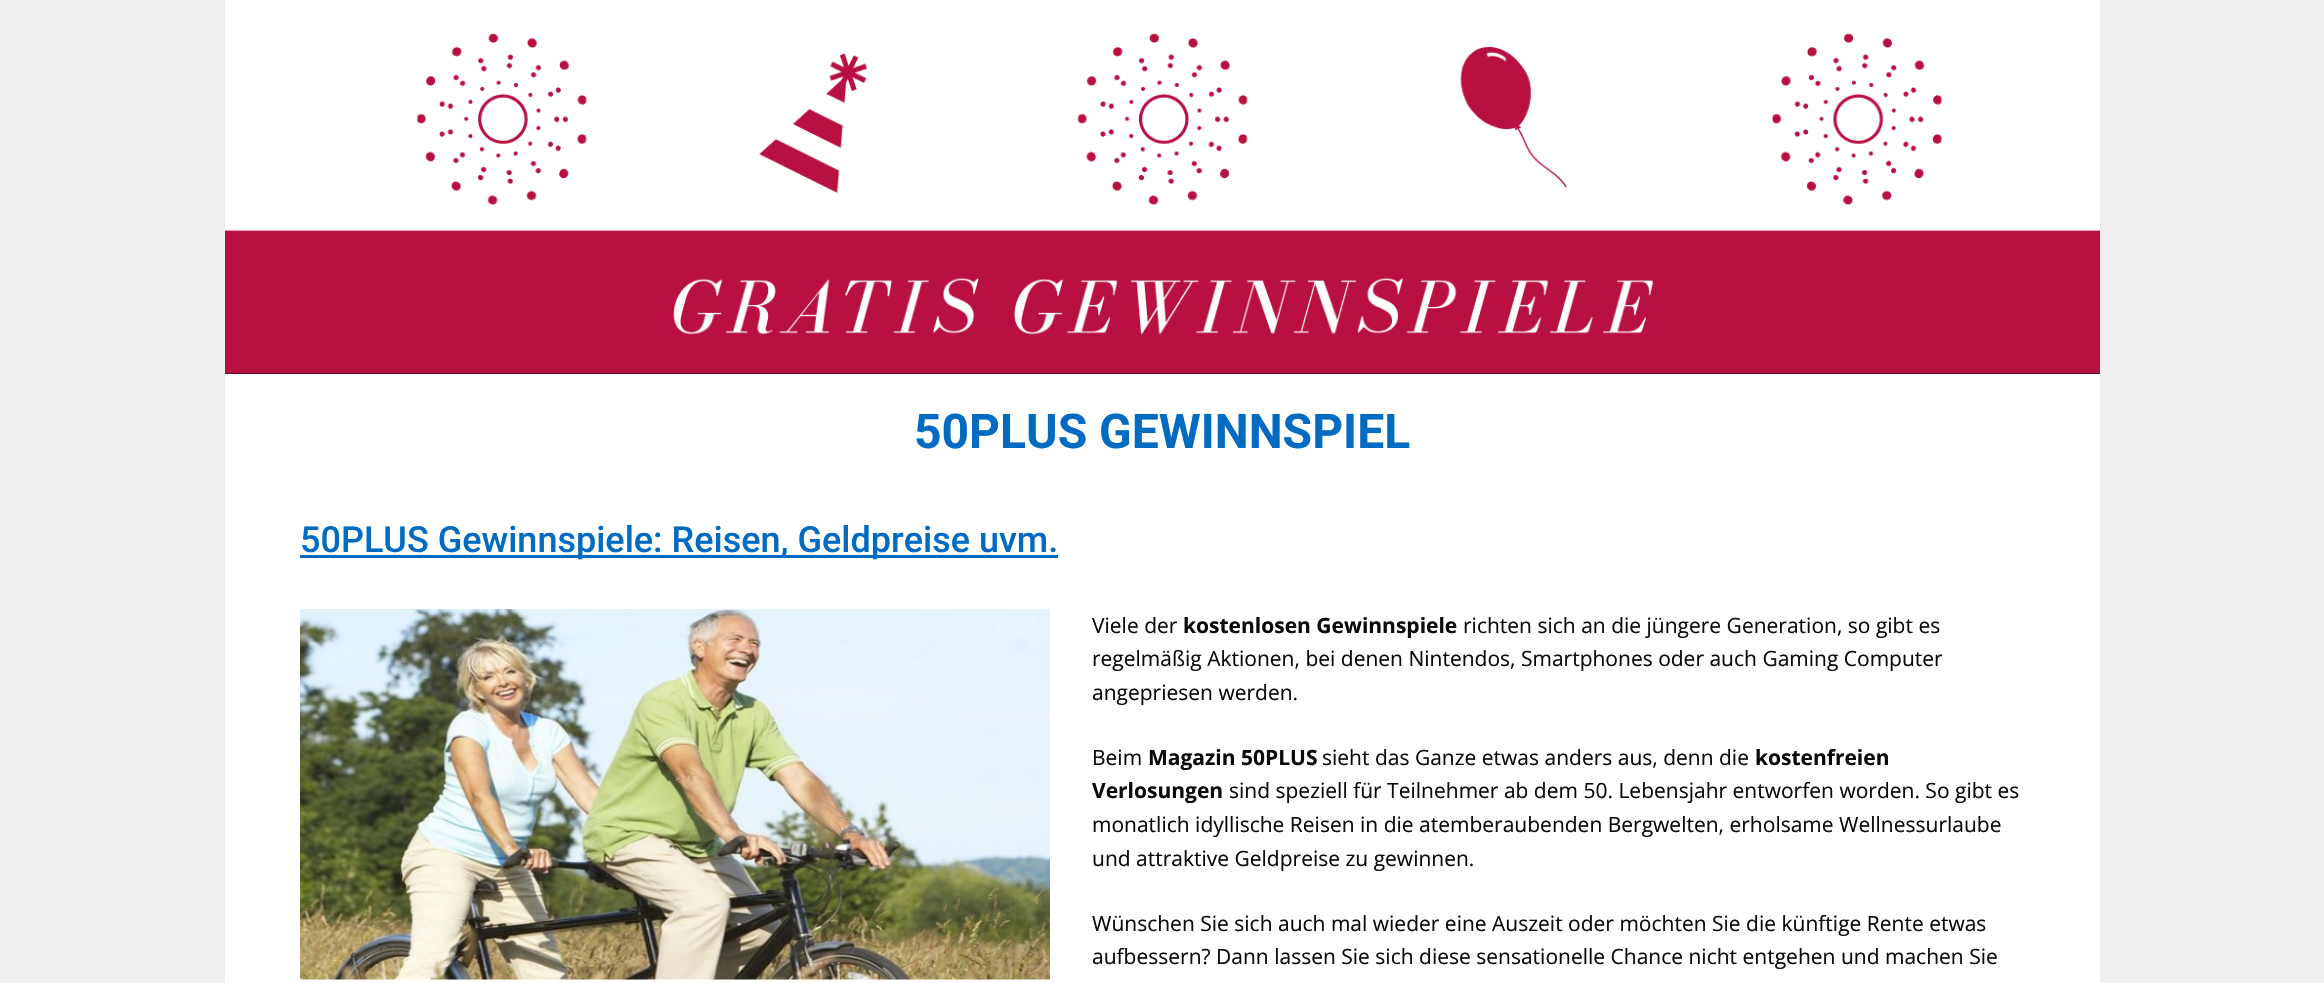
#include "include/core/SkBlurTypes.h"
#include "include/core/SkCanvas.h"
#include "include/core/SkData.h"
#include "include/core/SkFont.h"
#include "include/core/SkFontMgr.h"
#include "include/core/SkImage.h"
#include "include/core/SkMaskFilter.h"
#include "include/core/SkPaint.h"
#include "include/core/SkPathBuilder.h"
#include "include/core/SkTextBlob.h"
#include "include/effects/SkDashPathEffect.h"
#include "include/effects/SkGradientShader.h"
#include "include/utils/SkParsePath.h"

extern sk_sp<SkFontMgr> fontMgr;

void draw(SkCanvas* canvas) {
  SkPaint p;
  p.setAntiAlias(true);
  canvas->clear(SkColorSetRGB(239, 239, 239));
  p.setColor(SkColorSetRGB(10, 10, 10));
  canvas->drawRect(SkRect::MakeLTRB(225, 373, 2100, 374), p);
  canvas->drawImageRect(SkImages::DeferredFromEncodedData(SkData::MakeFromFileName("images/1.png")), SkRect::MakeLTRB(225, 0, 2100, 374), SkSamplingOptions());
  p.setColor(SK_ColorWHITE);
  canvas->drawRect(SkRect::MakeLTRB(225, 374, 2100, 983), p);
  p.setColor(SkColorSetRGB(1, 107, 193));
  canvas->drawRect(SkRect::MakeLTRB(300, 555, 1058, 558), p);
  canvas->drawImageRect(SkImages::DeferredFromEncodedData(SkData::MakeFromFileName("images/2.png")), SkRect::MakeLTRB(300, 609, 1050, 980), SkSamplingOptions());
  SkFont font1(fontMgr->matchFamilyStyle("Roboto", SkFontStyle::Bold()), 48);
  font1.setSubpixel(true);
  canvas->drawString("50PLUS GEWINNSPIEL", 914, 448, font1, p);
  SkFont font2(fontMgr->matchFamilyStyle("Roboto", SkFontStyle(500, SkFontStyle::kNormal_Width, SkFontStyle::kUpright_Slant)), 36);
  font2.setSubpixel(true);
  canvas->drawString("50PLUS Gewinnspiele: Reisen, Geldpreise uvm.", 300, 552, font2, p);
  SkFont font3(fontMgr->matchFamilyStyle("Open Sans", SkFontStyle::Normal()), 21);
  font3.setSubpixel(true);
  p.setColor(SkColorSetRGB(10, 10, 10));
  canvas->drawString("Viele der", 1092, 633, font3, p);
  SkFont font4(fontMgr->matchFamilyStyle("Open Sans", SkFontStyle::Bold()), 21);
  font4.setSubpixel(true);
  canvas->drawString("kostenlosen Gewinnspiele", 1183, 633, font4, p);
  canvas->drawString("richten sich an die jüngere Generation, so gibt es", 1463, 633, font3, p);
  canvas->drawString("regelmäßig Aktionen, bei denen Nintendos, Smartphones oder auch Gaming Computer", 1092, 666, font3, p);
  canvas->drawString("angepriesen werden.", 1092, 700, font3, p);
  canvas->drawString("Beim", 1092, 765, font3, p);
  canvas->drawString("Magazin 50PLUS", 1148, 765, font4, p);
  canvas->drawString("sieht das Ganze etwas anders aus, denn die", 1322, 765, font3, p);
  canvas->drawString("kostenfreien", 1755, 765, font4, p);
  canvas->drawString("Verlosungen", 1092, 798, font4, p);
  canvas->drawString("sind speziell für Teilnehmer ab dem 50. Lebensjahr entworfen worden. So gibt es", 1229, 798, font3, p);
  canvas->drawString("monatlich idyllische Reisen in die atemberaubenden Bergwelten, erholsame Wellnessurlaube", 1092, 832, font3, p);
  canvas->drawString("und attraktive Geldpreise zu gewinnen.", 1092, 866, font3, p);
  canvas->drawString("Wünschen Sie sich auch mal wieder eine Auszeit oder möchten Sie die künftige Rente etwas", 1092, 931, font3, p);
  canvas->drawString("aufbessern? Dann lassen Sie sich diese sensationelle Chance nicht entgehen und machen Sie", 1092, 964, font3, p);
}
